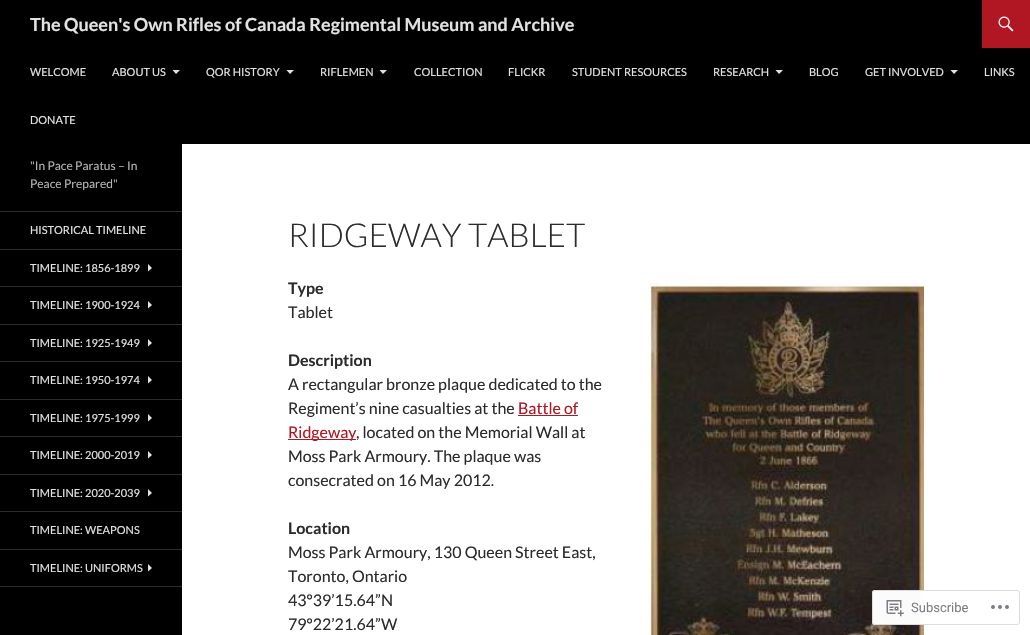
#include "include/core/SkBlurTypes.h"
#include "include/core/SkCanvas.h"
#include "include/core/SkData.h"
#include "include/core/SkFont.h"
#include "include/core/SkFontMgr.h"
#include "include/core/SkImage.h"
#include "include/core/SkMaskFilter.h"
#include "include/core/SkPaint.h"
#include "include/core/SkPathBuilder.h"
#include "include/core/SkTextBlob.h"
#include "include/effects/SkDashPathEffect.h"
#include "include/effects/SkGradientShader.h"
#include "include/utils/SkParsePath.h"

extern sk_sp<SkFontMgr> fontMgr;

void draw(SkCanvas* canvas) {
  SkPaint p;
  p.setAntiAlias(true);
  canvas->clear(SK_ColorWHITE);
  p.setColor(SK_ColorBLACK);
  canvas->drawRect(SkRect::MakeLTRB(0, 0, 1030, 144), p);
  p.setColor(SkColorSetRGB(177, 22, 35));
  canvas->drawRect(SkRect::MakeLTRB(982, 0, 1030, 48), p);
  canvas->drawImageRect(SkImages::DeferredFromEncodedData(SkData::MakeFromFileName("images/1.png")), SkRect::MakeLTRB(998, 16, 1014, 32), SkSamplingOptions());
  p.setColor(SkColorSetRGB(226, 226, 226));
  canvas->drawPath(SkPathBuilder().moveTo(172.5f, 70).lineTo(180, 70).lineTo(176, 74).close().detach(), p);
  canvas->drawPath(SkPathBuilder().moveTo(286.5f, 70).lineTo(294, 70).lineTo(290, 74).close().detach(), p);
  canvas->drawPath(SkPathBuilder().moveTo(379.5f, 70).lineTo(387, 70).lineTo(383, 74).close().detach(), p);
  canvas->drawPath(SkPathBuilder().moveTo(775.5f, 70).lineTo(783, 70).lineTo(779, 74).close().detach(), p);
  canvas->drawPath(SkPathBuilder().moveTo(950.5f, 70).lineTo(958, 70).lineTo(954, 74).close().detach(), p);
  p.setColor(SK_ColorBLACK);
  canvas->drawRect(SkRect::MakeLTRB(0, 144, 182, 635), p);
  p.setColor(SkColorSetRGB(45, 45, 45));
  canvas->drawRect(SkRect::MakeLTRB(0, 586, 182, 587), p);
  canvas->drawRect(SkRect::MakeLTRB(0, 211, 182, 212), p);
  canvas->drawRect(SkRect::MakeLTRB(0, 249, 182, 250), p);
  p.setColor(SkColorSetRGB(226, 226, 226));
  canvas->drawPath(SkPathBuilder().moveTo(148, 271.5f).lineTo(148, 264).lineTo(152, 268).close().detach(), p);
  p.setColor(SkColorSetRGB(45, 45, 45));
  canvas->drawRect(SkRect::MakeLTRB(0, 286, 182, 287), p);
  p.setColor(SkColorSetRGB(226, 226, 226));
  canvas->drawPath(SkPathBuilder().moveTo(148, 308.5f).lineTo(148, 301).lineTo(152, 305).close().detach(), p);
  p.setColor(SkColorSetRGB(45, 45, 45));
  canvas->drawRect(SkRect::MakeLTRB(0, 324, 182, 325), p);
  p.setColor(SkColorSetRGB(226, 226, 226));
  canvas->drawPath(SkPathBuilder().moveTo(148, 346.5f).lineTo(148, 339).lineTo(152, 343).close().detach(), p);
  p.setColor(SkColorSetRGB(45, 45, 45));
  canvas->drawRect(SkRect::MakeLTRB(0, 361, 182, 362), p);
  p.setColor(SkColorSetRGB(226, 226, 226));
  canvas->drawPath(SkPathBuilder().moveTo(148, 383.5f).lineTo(148, 376).lineTo(152, 380).close().detach(), p);
  p.setColor(SkColorSetRGB(45, 45, 45));
  canvas->drawRect(SkRect::MakeLTRB(0, 399, 182, 400), p);
  p.setColor(SkColorSetRGB(226, 226, 226));
  canvas->drawPath(SkPathBuilder().moveTo(148, 421.5f).lineTo(148, 414).lineTo(152, 418).close().detach(), p);
  p.setColor(SkColorSetRGB(45, 45, 45));
  canvas->drawRect(SkRect::MakeLTRB(0, 436, 182, 437), p);
  p.setColor(SkColorSetRGB(226, 226, 226));
  canvas->drawPath(SkPathBuilder().moveTo(148, 458.5f).lineTo(148, 451).lineTo(152, 455).close().detach(), p);
  p.setColor(SkColorSetRGB(45, 45, 45));
  canvas->drawRect(SkRect::MakeLTRB(0, 474, 182, 475), p);
  p.setColor(SkColorSetRGB(226, 226, 226));
  canvas->drawPath(SkPathBuilder().moveTo(148, 496.5f).lineTo(148, 489).lineTo(152, 493).close().detach(), p);
  p.setColor(SkColorSetRGB(45, 45, 45));
  canvas->drawRect(SkRect::MakeLTRB(0, 511, 182, 512), p);
  canvas->drawRect(SkRect::MakeLTRB(0, 549, 182, 550), p);
  p.setColor(SkColorSetRGB(226, 226, 226));
  canvas->drawPath(SkPathBuilder().moveTo(148, 571.5f).lineTo(148, 564).lineTo(152, 568).close().detach(), p);
  canvas->drawImageRect(SkImages::DeferredFromEncodedData(SkData::MakeFromFileName("images/2.png")), SkRect::MakeLTRB(650, 283, 924, 635), SkSamplingOptions());
  p.setColor(SkColorSetRGB(177, 22, 35));
  canvas->drawRect(SkRect::MakeLTRB(518, 415, 578, 416), p);
  canvas->drawRect(SkRect::MakeLTRB(288, 439, 356, 440), p);
  p.setColor(SkColorSetARGB(250, 255, 255, 255));
  canvas->drawRoundRect(SkRect::MakeLTRB(872, 590, 1020, 625), 3, 3, p);
  p.setStyle(SkPaint::kStroke_Style);
  p.setStrokeWidth(1);
  p.setColor(SkColorSetARGB(250, 220, 220, 222));
  canvas->drawRoundRect(SkRect::MakeLTRB(872.5f, 590.5f, 1019.5f, 624.5f), 2.5f, 2.5f, p);
  canvas->drawImageRect(SkImages::DeferredFromEncodedData(SkData::MakeFromFileName("images/3.png")), SkRect::MakeLTRB(886, 600, 904, 617), SkSamplingOptions());
  canvas->drawImageRect(SkImages::DeferredFromEncodedData(SkData::MakeFromFileName("images/4.png")), SkRect::MakeLTRB(991, 605, 1009, 609), SkSamplingOptions());
  SkFont font1(fontMgr->matchFamilyStyle("Lato", SkFontStyle::Bold()), 18);
  font1.setSubpixel(true);
  p.setStyle(SkPaint::kFill_Style);
  p.setColor(SkColorSetRGB(226, 226, 226));
  canvas->drawString("The Queen's Own Rifles of Canada Regimental Museum and Archive", 30, 31, font1, p);
  SkFont font2(fontMgr->matchFamilyStyle("Lato", SkFontStyle::Normal()), 11);
  font2.setSubpixel(true);
  canvas->drawString("WELCOME", 30, 76, font2, p);
  canvas->drawString("ABOUT US", 112, 76, font2, p);
  canvas->drawString("QOR HISTORY", 206, 76, font2, p);
  canvas->drawString("RIFLEMEN", 320, 76, font2, p);
  canvas->drawString("COLLECTION", 414, 76, font2, p);
  canvas->drawString("FLICKR", 508, 76, font2, p);
  canvas->drawString("STUDENT RESOURCES", 572, 76, font2, p);
  canvas->drawString("RESEARCH", 713, 76, font2, p);
  canvas->drawString("BLOG", 809, 76, font2, p);
  canvas->drawString("GET INVOLVED", 865, 76, font2, p);
  canvas->drawString("LINKS", 984, 76, font2, p);
  canvas->drawString("DONATE", 30, 124, font2, p);
  SkFont font3(fontMgr->matchFamilyStyle("Lato", SkFontStyle::Normal()), 12);
  font3.setSubpixel(true);
  p.setColor(SkColorSetRGB(181, 181, 181));
  canvas->drawString("\"In Pace Paratus – In", 30, 170, font3, p);
  canvas->drawString("Peace Prepared\"", 30, 188, font3, p);
  p.setColor(SkColorSetRGB(226, 226, 226));
  canvas->drawString("HISTORICAL TIMELINE", 30, 234, font2, p);
  canvas->drawString("TIMELINE: 1856-1899", 30, 272, font2, p);
  canvas->drawString("TIMELINE: 1900-1924", 30, 309, font2, p);
  canvas->drawString("TIMELINE: 1925-1949", 30, 347, font2, p);
  canvas->drawString("TIMELINE: 1950-1974", 30, 384, font2, p);
  canvas->drawString("TIMELINE: 1975-1999", 30, 422, font2, p);
  canvas->drawString("TIMELINE: 2000-2019", 30, 459, font2, p);
  canvas->drawString("TIMELINE: 2020-2039", 30, 497, font2, p);
  canvas->drawString("TIMELINE: WEAPONS", 30, 534, font2, p);
  canvas->drawString("TIMELINE: UNIFORMS", 30, 572, font2, p);
  SkFont font4(fontMgr->matchFamilyStyle("Lato", SkFontStyle(300, SkFontStyle::kNormal_Width, SkFontStyle::kUpright_Slant)), 33);
  font4.setSubpixel(true);
  p.setColor(SkColorSetRGB(43, 43, 43));
  canvas->drawString("RIDGEWAY TABLET", 288, 247, font4, p);
  SkFont font5(fontMgr->matchFamilyStyle("Lato", SkFontStyle::Bold()), 16);
  font5.setSubpixel(true);
  canvas->drawString("Type", 288, 294, font5, p);
  SkFont font6(fontMgr->matchFamilyStyle("Lato", SkFontStyle::Normal()), 16);
  font6.setSubpixel(true);
  canvas->drawString("Tablet", 288, 318, font6, p);
  canvas->drawString("Description", 288, 366, font5, p);
  canvas->drawString("A rectangular bronze plaque dedicated to the", 288, 390, font6, p);
  canvas->drawString("Regiment’s nine casualties at the", 288, 414, font6, p);
  p.setColor(SkColorSetRGB(177, 22, 35));
  canvas->drawString("Battle of", 518, 414, font6, p);
  canvas->drawString("Ridgeway", 288, 438, font6, p);
  p.setColor(SkColorSetRGB(43, 43, 43));
  canvas->drawString(", located on the Memorial Wall at", 356, 438, font6, p);
  canvas->drawString("Moss Park Armoury. The plaque was", 288, 462, font6, p);
  canvas->drawString("consecrated on 16 May 2012.", 288, 486, font6, p);
  canvas->drawString("Location", 288, 534, font5, p);
  canvas->drawString("Moss Park Armoury, 130 Queen Street East,", 288, 558, font6, p);
  canvas->drawString("Toronto, Ontario", 288, 582, font6, p);
  canvas->drawString("43º39’15.64”N", 288, 606, font6, p);
  canvas->drawString("79º22’21.64”W", 288, 630, font6, p);
  SkFont font7(fontMgr->matchFamilyStyle("Roboto", SkFontStyle::Normal()), 13);
  font7.setSubpixel(true);
  p.setColor(SkColorSetRGB(123, 127, 132));
  canvas->drawString("Subscribe", 911, 612, font7, p);
}
